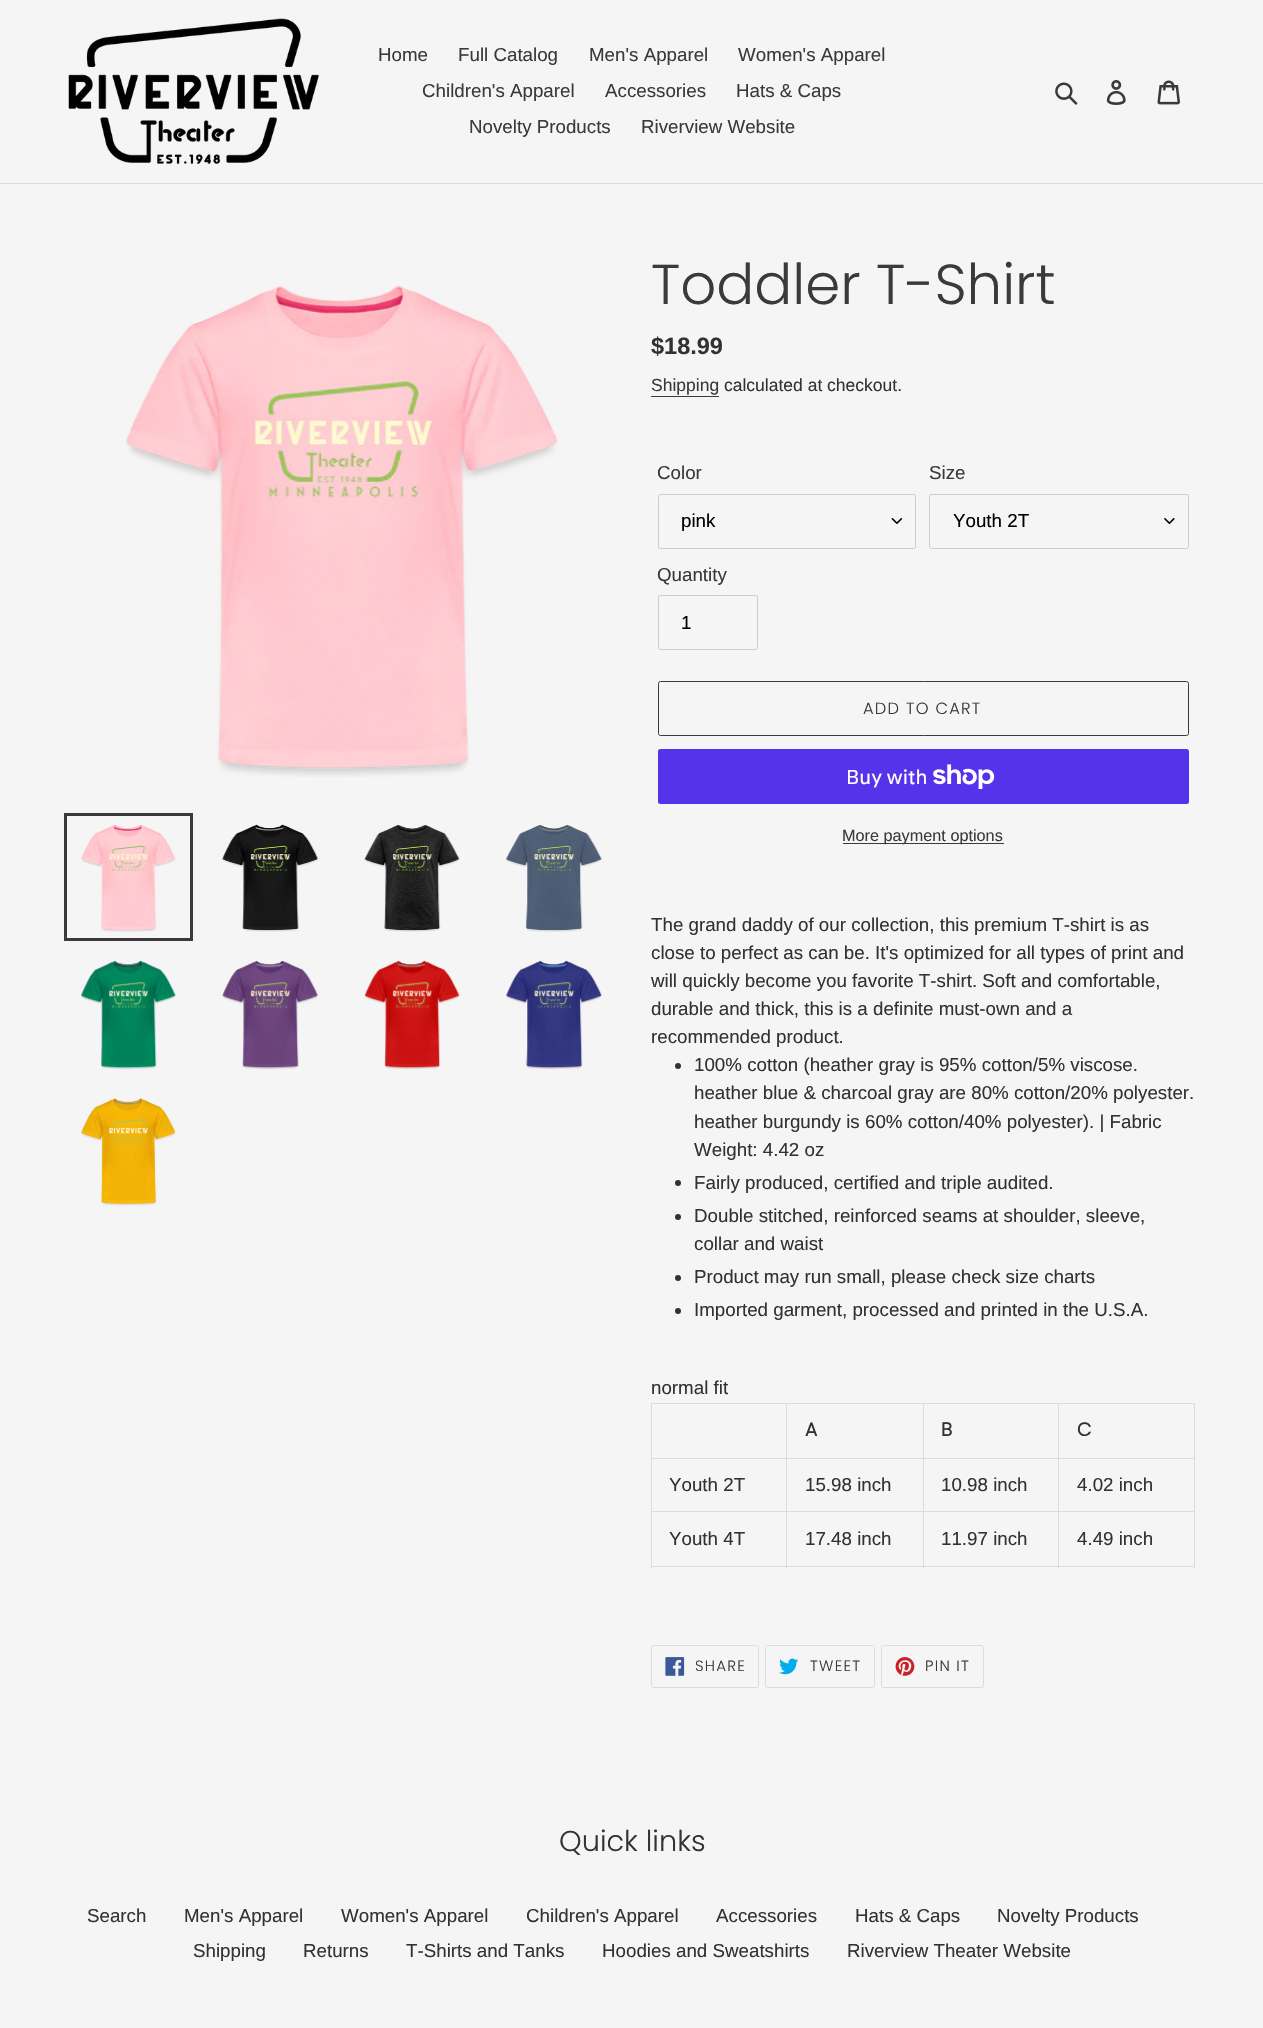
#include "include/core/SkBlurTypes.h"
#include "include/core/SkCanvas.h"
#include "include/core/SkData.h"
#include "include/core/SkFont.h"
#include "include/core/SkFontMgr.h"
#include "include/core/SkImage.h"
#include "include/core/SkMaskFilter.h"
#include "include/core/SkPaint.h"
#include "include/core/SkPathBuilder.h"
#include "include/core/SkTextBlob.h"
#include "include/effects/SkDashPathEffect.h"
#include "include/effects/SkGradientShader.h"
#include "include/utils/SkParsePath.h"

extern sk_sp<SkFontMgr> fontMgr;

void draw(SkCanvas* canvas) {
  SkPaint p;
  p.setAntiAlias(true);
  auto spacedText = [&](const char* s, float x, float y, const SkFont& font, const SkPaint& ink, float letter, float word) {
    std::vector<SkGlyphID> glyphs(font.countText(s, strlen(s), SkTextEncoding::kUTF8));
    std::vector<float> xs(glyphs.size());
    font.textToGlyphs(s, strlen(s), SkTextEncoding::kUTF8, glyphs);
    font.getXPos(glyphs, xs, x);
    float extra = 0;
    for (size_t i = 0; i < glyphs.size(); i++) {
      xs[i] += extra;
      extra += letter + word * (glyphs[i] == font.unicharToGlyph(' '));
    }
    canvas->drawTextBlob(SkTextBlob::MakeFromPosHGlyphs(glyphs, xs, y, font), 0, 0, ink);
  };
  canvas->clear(SkColorSetRGB(245, 245, 245));
  p.setColor(SkColorSetRGB(220, 220, 220));
  canvas->drawRect(SkRect::MakeLTRB(0, 183, 1263, 184), p);
  canvas->drawImageRect(SkImages::DeferredFromEncodedData(SkData::MakeFromFileName("images/1.png")), SkRect::MakeLTRB(68, 18, 319, 164), SkSamplingOptions());
  canvas->drawImageRect(SkImages::DeferredFromEncodedData(SkData::MakeFromFileName("images/2.png")), SkRect::MakeLTRB(1055, 82, 1078, 105), SkSamplingOptions());
  canvas->drawImageRect(SkImages::DeferredFromEncodedData(SkData::MakeFromFileName("images/3.png")), SkRect::MakeLTRB(1106, 80, 1126, 105), SkSamplingOptions());
  canvas->drawImageRect(SkImages::DeferredFromEncodedData(SkData::MakeFromFileName("images/4.png")), SkRect::MakeLTRB(1157, 80, 1180, 105), SkSamplingOptions());
  canvas->drawImageRect(SkImages::DeferredFromEncodedData(SkData::MakeFromFileName("images/5.png")), SkRect::MakeLTRB(126, 285, 558, 777), SkSamplingOptions());
  p.setStyle(SkPaint::kStroke_Style);
  p.setStrokeWidth(3);
  p.setColor(SkColorSetRGB(58, 58, 58));
  canvas->drawRect(SkRect::MakeLTRB(65.5f, 814.5f, 191.5f, 939.5f), p);
  canvas->drawImageRect(SkImages::DeferredFromEncodedData(SkData::MakeFromFileName("images/6.png")), SkRect::MakeLTRB(81, 824, 176, 932), SkSamplingOptions());
  canvas->drawImageRect(SkImages::DeferredFromEncodedData(SkData::MakeFromFileName("images/7.png")), SkRect::MakeLTRB(222, 824, 318, 932), SkSamplingOptions());
  canvas->drawImageRect(SkImages::DeferredFromEncodedData(SkData::MakeFromFileName("images/8.png")), SkRect::MakeLTRB(364, 824, 460, 932), SkSamplingOptions());
  canvas->drawImageRect(SkImages::DeferredFromEncodedData(SkData::MakeFromFileName("images/9.png")), SkRect::MakeLTRB(506, 824, 602, 932), SkSamplingOptions());
  canvas->drawImageRect(SkImages::DeferredFromEncodedData(SkData::MakeFromFileName("images/10.png")), SkRect::MakeLTRB(81, 960, 176, 1070), SkSamplingOptions());
  canvas->drawImageRect(SkImages::DeferredFromEncodedData(SkData::MakeFromFileName("images/11.png")), SkRect::MakeLTRB(222, 960, 318, 1070), SkSamplingOptions());
  canvas->drawImageRect(SkImages::DeferredFromEncodedData(SkData::MakeFromFileName("images/12.png")), SkRect::MakeLTRB(364, 960, 460, 1070), SkSamplingOptions());
  canvas->drawImageRect(SkImages::DeferredFromEncodedData(SkData::MakeFromFileName("images/13.png")), SkRect::MakeLTRB(506, 960, 602, 1070), SkSamplingOptions());
  canvas->drawImageRect(SkImages::DeferredFromEncodedData(SkData::MakeFromFileName("images/14.png")), SkRect::MakeLTRB(81, 1098, 176, 1206), SkSamplingOptions());
  p.setStyle(SkPaint::kFill_Style);
  canvas->drawRect(SkRect::MakeLTRB(651, 396, 719, 397), p);
  canvas->drawImageRect(SkImages::DeferredFromEncodedData(SkData::MakeFromFileName("images/15.png")), SkRect::MakeLTRB(891, 518, 903, 524), SkSamplingOptions());
  p.setStyle(SkPaint::kStroke_Style);
  p.setStrokeWidth(1);
  p.setColor(SkColorSetRGB(204, 204, 204));
  canvas->drawRoundRect(SkRect::MakeLTRB(658.5f, 494.5f, 915.5f, 548.5f), 2, 2, p);
  canvas->drawImageRect(SkImages::DeferredFromEncodedData(SkData::MakeFromFileName("images/16.png")), SkRect::MakeLTRB(1164, 518, 1175, 524), SkSamplingOptions());
  canvas->drawRoundRect(SkRect::MakeLTRB(929.5f, 494.5f, 1188.5f, 548.5f), 2, 2, p);
  canvas->drawRoundRect(SkRect::MakeLTRB(658.5f, 595.5f, 757.5f, 649.5f), 2, 2, p);
  p.setColor(SkColorSetRGB(58, 58, 58));
  canvas->drawRoundRect(SkRect::MakeLTRB(658.5f, 681.5f, 1188.5f, 735.5f), 2, 2, p);
  p.setStyle(SkPaint::kFill_Style);
  p.setColor(SkColorSetRGB(84, 51, 235));
  canvas->drawRoundRect(SkRect::MakeLTRB(658, 749, 1189, 804), 2.5f, 2.5f, p);
  canvas->drawImageRect(SkImages::DeferredFromEncodedData(SkData::MakeFromFileName("images/17.png")), SkRect::MakeLTRB(933, 764, 995, 789), SkSamplingOptions());
  p.setColor(SkColorSetRGB(58, 58, 58));
  canvas->drawRect(SkRect::MakeLTRB(843, 843, 1004, 844), p);
  p.setColor(SkColorSetRGB(51, 50, 50));
  canvas->drawCircle(678, 1066, 3, p);
  canvas->drawCircle(678, 1183, 3, p);
  canvas->drawCircle(678, 1217, 3, p);
  canvas->drawCircle(678, 1278, 3, p);
  canvas->drawCircle(678, 1311, 3, p);
  p.setColor(SkColorSetRGB(220, 220, 220));
  canvas->drawRect(SkRect::MakeLTRB(1058, 1403, 1195, 1404), p);
  canvas->drawRect(SkRect::MakeLTRB(1058, 1458, 1195, 1459), p);
  canvas->drawRect(SkRect::MakeLTRB(1058, 1511, 1195, 1512), p);
  canvas->drawRect(SkRect::MakeLTRB(1194, 1511, 1195, 1568), p);
  canvas->drawRect(SkRect::MakeLTRB(1058, 1566, 1195, 1567), p);
  canvas->drawRect(SkRect::MakeLTRB(1058, 1511, 1059, 1568), p);
  canvas->drawRect(SkRect::MakeLTRB(923, 1511, 1059, 1512), p);
  canvas->drawRect(SkRect::MakeLTRB(1058, 1458, 1059, 1513), p);
  canvas->drawRect(SkRect::MakeLTRB(923, 1458, 1059, 1459), p);
  canvas->drawRect(SkRect::MakeLTRB(1058, 1403, 1059, 1459), p);
  canvas->drawRect(SkRect::MakeLTRB(923, 1403, 1059, 1404), p);
  canvas->drawRect(SkRect::MakeLTRB(923, 1566, 1059, 1567), p);
  canvas->drawRect(SkRect::MakeLTRB(923, 1511, 924, 1568), p);
  canvas->drawRect(SkRect::MakeLTRB(786, 1511, 924, 1512), p);
  canvas->drawRect(SkRect::MakeLTRB(923, 1458, 924, 1513), p);
  canvas->drawRect(SkRect::MakeLTRB(786, 1458, 924, 1459), p);
  canvas->drawRect(SkRect::MakeLTRB(923, 1403, 924, 1459), p);
  canvas->drawRect(SkRect::MakeLTRB(786, 1403, 924, 1404), p);
  canvas->drawRect(SkRect::MakeLTRB(786, 1566, 924, 1567), p);
  canvas->drawRect(SkRect::MakeLTRB(786, 1511, 787, 1568), p);
  canvas->drawRect(SkRect::MakeLTRB(651, 1511, 788, 1512), p);
  canvas->drawRect(SkRect::MakeLTRB(786, 1458, 787, 1513), p);
  canvas->drawRect(SkRect::MakeLTRB(651, 1458, 788, 1459), p);
  canvas->drawRect(SkRect::MakeLTRB(786, 1403, 787, 1459), p);
  canvas->drawRect(SkRect::MakeLTRB(651, 1403, 788, 1404), p);
  canvas->drawRect(SkRect::MakeLTRB(651, 1566, 788, 1567), p);
  canvas->drawRect(SkRect::MakeLTRB(651, 1511, 652, 1568), p);
  canvas->drawRect(SkRect::MakeLTRB(651, 1458, 652, 1513), p);
  canvas->drawRect(SkRect::MakeLTRB(651, 1403, 652, 1459), p);
  canvas->drawRect(SkRect::MakeLTRB(1194, 1458, 1195, 1513), p);
  canvas->drawRect(SkRect::MakeLTRB(1194, 1403, 1195, 1459), p);
  p.setStyle(SkPaint::kStroke_Style);
  canvas->drawRoundRect(SkRect::MakeLTRB(651.5f, 1645.5f, 758.5f, 1687.5f), 2, 2, p);
  canvas->drawImageRect(SkImages::DeferredFromEncodedData(SkData::MakeFromFileName("images/18.png")), SkRect::MakeLTRB(665, 1657, 685, 1676), SkSamplingOptions());
  canvas->drawRoundRect(SkRect::MakeLTRB(765.5f, 1645.5f, 874.5f, 1687.5f), 2, 2, p);
  canvas->drawImageRect(SkImages::DeferredFromEncodedData(SkData::MakeFromFileName("images/19.png")), SkRect::MakeLTRB(779, 1658, 799, 1675), SkSamplingOptions());
  canvas->drawRoundRect(SkRect::MakeLTRB(881.5f, 1645.5f, 983.5f, 1687.5f), 2, 2, p);
  canvas->drawImageRect(SkImages::DeferredFromEncodedData(SkData::MakeFromFileName("images/20.png")), SkRect::MakeLTRB(895, 1657, 915, 1676), SkSamplingOptions());
  SkFont font1(fontMgr->matchFamilyStyle("Liberation Sans", SkFontStyle::Normal()), 18.75f);
  font1.setSubpixel(true);
  p.setStyle(SkPaint::kFill_Style);
  p.setColor(SkColorSetRGB(58, 58, 58));
  canvas->drawString("Home", 378, 61, font1, p);
  canvas->drawString("Full Catalog", 458, 61, font1, p);
  canvas->drawString("Men's Apparel", 589, 61, font1, p);
  canvas->drawString("Women's Apparel", 738, 61, font1, p);
  canvas->drawString("Children's Apparel", 422, 97, font1, p);
  canvas->drawString("Accessories", 605, 97, font1, p);
  canvas->drawString("Hats & Caps", 736, 97, font1, p);
  canvas->drawString("Novelty Products", 469, 133, font1, p);
  canvas->drawString("Riverview Website", 641, 133, font1, p);
  SkFont font2(fontMgr->matchFamilyStyle("Poppins", SkFontStyle(300, SkFontStyle::kNormal_Width, SkFontStyle::kUpright_Slant)), 56.25f);
  font2.setSubpixel(true);
  canvas->drawString("Toddler T-Shirt", 651, 304, font2, p);
  SkFont font3(fontMgr->matchFamilyStyle("Liberation Sans", SkFontStyle::Bold()), 23.5f);
  font3.setSubpixel(true);
  p.setColor(SkColorSetRGB(51, 50, 50));
  canvas->drawString("$18.99", 651, 354, font3, p);
  SkFont font4(fontMgr->matchFamilyStyle("Liberation Sans", SkFontStyle::Normal()), 17.5f);
  font4.setSubpixel(true);
  p.setColor(SkColorSetRGB(58, 58, 58));
  canvas->drawString("Shipping", 651, 391, font4, p);
  p.setColor(SkColorSetRGB(51, 50, 50));
  canvas->drawString("calculated at checkout.", 724, 391, font4, p);
  p.setColor(SkColorSetRGB(58, 58, 58));
  canvas->drawString("Color", 657, 479, font1, p);
  p.setColor(SK_ColorBLACK);
  canvas->drawString("pink", 681, 527, font1, p);
  p.setColor(SkColorSetRGB(58, 58, 58));
  canvas->drawString("Size", 929, 479, font1, p);
  p.setColor(SK_ColorBLACK);
  canvas->drawString("Youth 2T", 953, 527, font1, p);
  p.setColor(SkColorSetRGB(58, 58, 58));
  canvas->drawString("Quantity", 657, 581, font1, p);
  p.setColor(SK_ColorBLACK);
  canvas->drawString("1", 681, 629, font1, p);
  SkFont font5(fontMgr->matchFamilyStyle("Poppins", SkFontStyle(300, SkFontStyle::kNormal_Width, SkFontStyle::kUpright_Slant)), 16.25f);
  font5.setSubpixel(true);
  p.setColor(SkColorSetRGB(58, 58, 58));
  spacedText("ADD TO CART", 863, 714, font5, p, 1.25f, 0);
  SkFont font6(fontMgr->matchFamilyStyle("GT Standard", SkFontStyle::Normal()), 20);
  font6.setSubpixel(true);
  p.setColor(SK_ColorWHITE);
  canvas->drawString("Buy with", 846, 784, font6, p);
  SkFont font7(fontMgr->matchFamilyStyle("Liberation Sans", SkFontStyle::Normal()), 16.25f);
  font7.setSubpixel(true);
  p.setColor(SkColorSetRGB(58, 58, 58));
  canvas->drawString("More payment options", 842, 841, font7, p);
  p.setColor(SkColorSetRGB(51, 50, 50));
  canvas->drawString("The grand daddy of our collection, this premium T-shirt is as", 651, 931, font1, p);
  canvas->drawString("close to perfect as can be. It's optimized for all types of print and", 651, 959, font1, p);
  canvas->drawString("will quickly become you favorite T-shirt. Soft and comfortable,", 651, 987, font1, p);
  canvas->drawString("durable and thick, this is a definite must-own and a", 651, 1015, font1, p);
  canvas->drawString("recommended product.", 651, 1043, font1, p);
  canvas->drawString("100% cotton (heather gray is 95% cotton/5% viscose.", 694, 1071, font1, p);
  canvas->drawString("heather blue & charcoal gray are 80% cotton/20% polyester.", 694, 1099, font1, p);
  canvas->drawString("heather burgundy is 60% cotton/40% polyester). | Fabric", 694, 1128, font1, p);
  canvas->drawString("Weight: 4.42 oz", 694, 1156, font1, p);
  canvas->drawString("Fairly produced, certified and triple audited.", 694, 1189, font1, p);
  canvas->drawString("Double stitched, reinforced seams at shoulder, sleeve,", 694, 1222, font1, p);
  canvas->drawString("collar and waist", 694, 1250, font1, p);
  canvas->drawString("Product may run small, please check size charts", 694, 1283, font1, p);
  canvas->drawString("Imported garment, processed and printed in the U.S.A.", 694, 1316, font1, p);
  canvas->drawString("normal fit", 651, 1394, font1, p);
  SkFont font8(fontMgr->matchFamilyStyle("Poppins", SkFontStyle::Bold()), 18.75f);
  font8.setSubpixel(true);
  canvas->drawString("A", 805, 1436, font8, p);
  canvas->drawString("B", 941, 1436, font8, p);
  canvas->drawString("C", 1077, 1436, font8, p);
  canvas->drawString("Youth 2T", 669, 1491, font1, p);
  canvas->drawString("15.98 inch", 805, 1491, font1, p);
  canvas->drawString("10.98 inch", 941, 1491, font1, p);
  canvas->drawString("4.02 inch", 1077, 1491, font1, p);
  canvas->drawString("Youth 4T", 669, 1545, font1, p);
  canvas->drawString("17.48 inch", 805, 1545, font1, p);
  canvas->drawString("11.97 inch", 941, 1545, font1, p);
  canvas->drawString("4.49 inch", 1077, 1545, font1, p);
  SkFont font9(fontMgr->matchFamilyStyle("Poppins", SkFontStyle(300, SkFontStyle::kNormal_Width, SkFontStyle::kUpright_Slant)), 15);
  font9.setSubpixel(true);
  p.setColor(SkColorSetRGB(58, 58, 58));
  spacedText("SHARE", 695, 1671, font9, p, 1.25f, 0);
  spacedText("TWEET", 810, 1671, font9, p, 1.25f, 0);
  spacedText("PIN IT", 925, 1671, font9, p, 1.25f, 0);
  SkFont font10(fontMgr->matchFamilyStyle("Poppins", SkFontStyle(300, SkFontStyle::kNormal_Width, SkFontStyle::kUpright_Slant)), 28.75f);
  font10.setSubpixel(true);
  p.setColor(SkColorSetRGB(51, 50, 50));
  canvas->drawString("Quick links", 559, 1851, font10, p);
  canvas->drawString("Search", 87, 1922, font1, p);
  canvas->drawString("Men's Apparel", 184, 1922, font1, p);
  canvas->drawString("Women's Apparel", 341, 1922, font1, p);
  canvas->drawString("Children's Apparel", 526, 1922, font1, p);
  canvas->drawString("Accessories", 716, 1922, font1, p);
  canvas->drawString("Hats & Caps", 855, 1922, font1, p);
  canvas->drawString("Novelty Products", 997, 1922, font1, p);
  canvas->drawString("Shipping", 193, 1957, font1, p);
  canvas->drawString("Returns", 303, 1957, font1, p);
  canvas->drawString("T-Shirts and Tanks", 406, 1957, font1, p);
  canvas->drawString("Hoodies and Sweatshirts", 602, 1957, font1, p);
  canvas->drawString("Riverview Theater Website", 847, 1957, font1, p);
}
